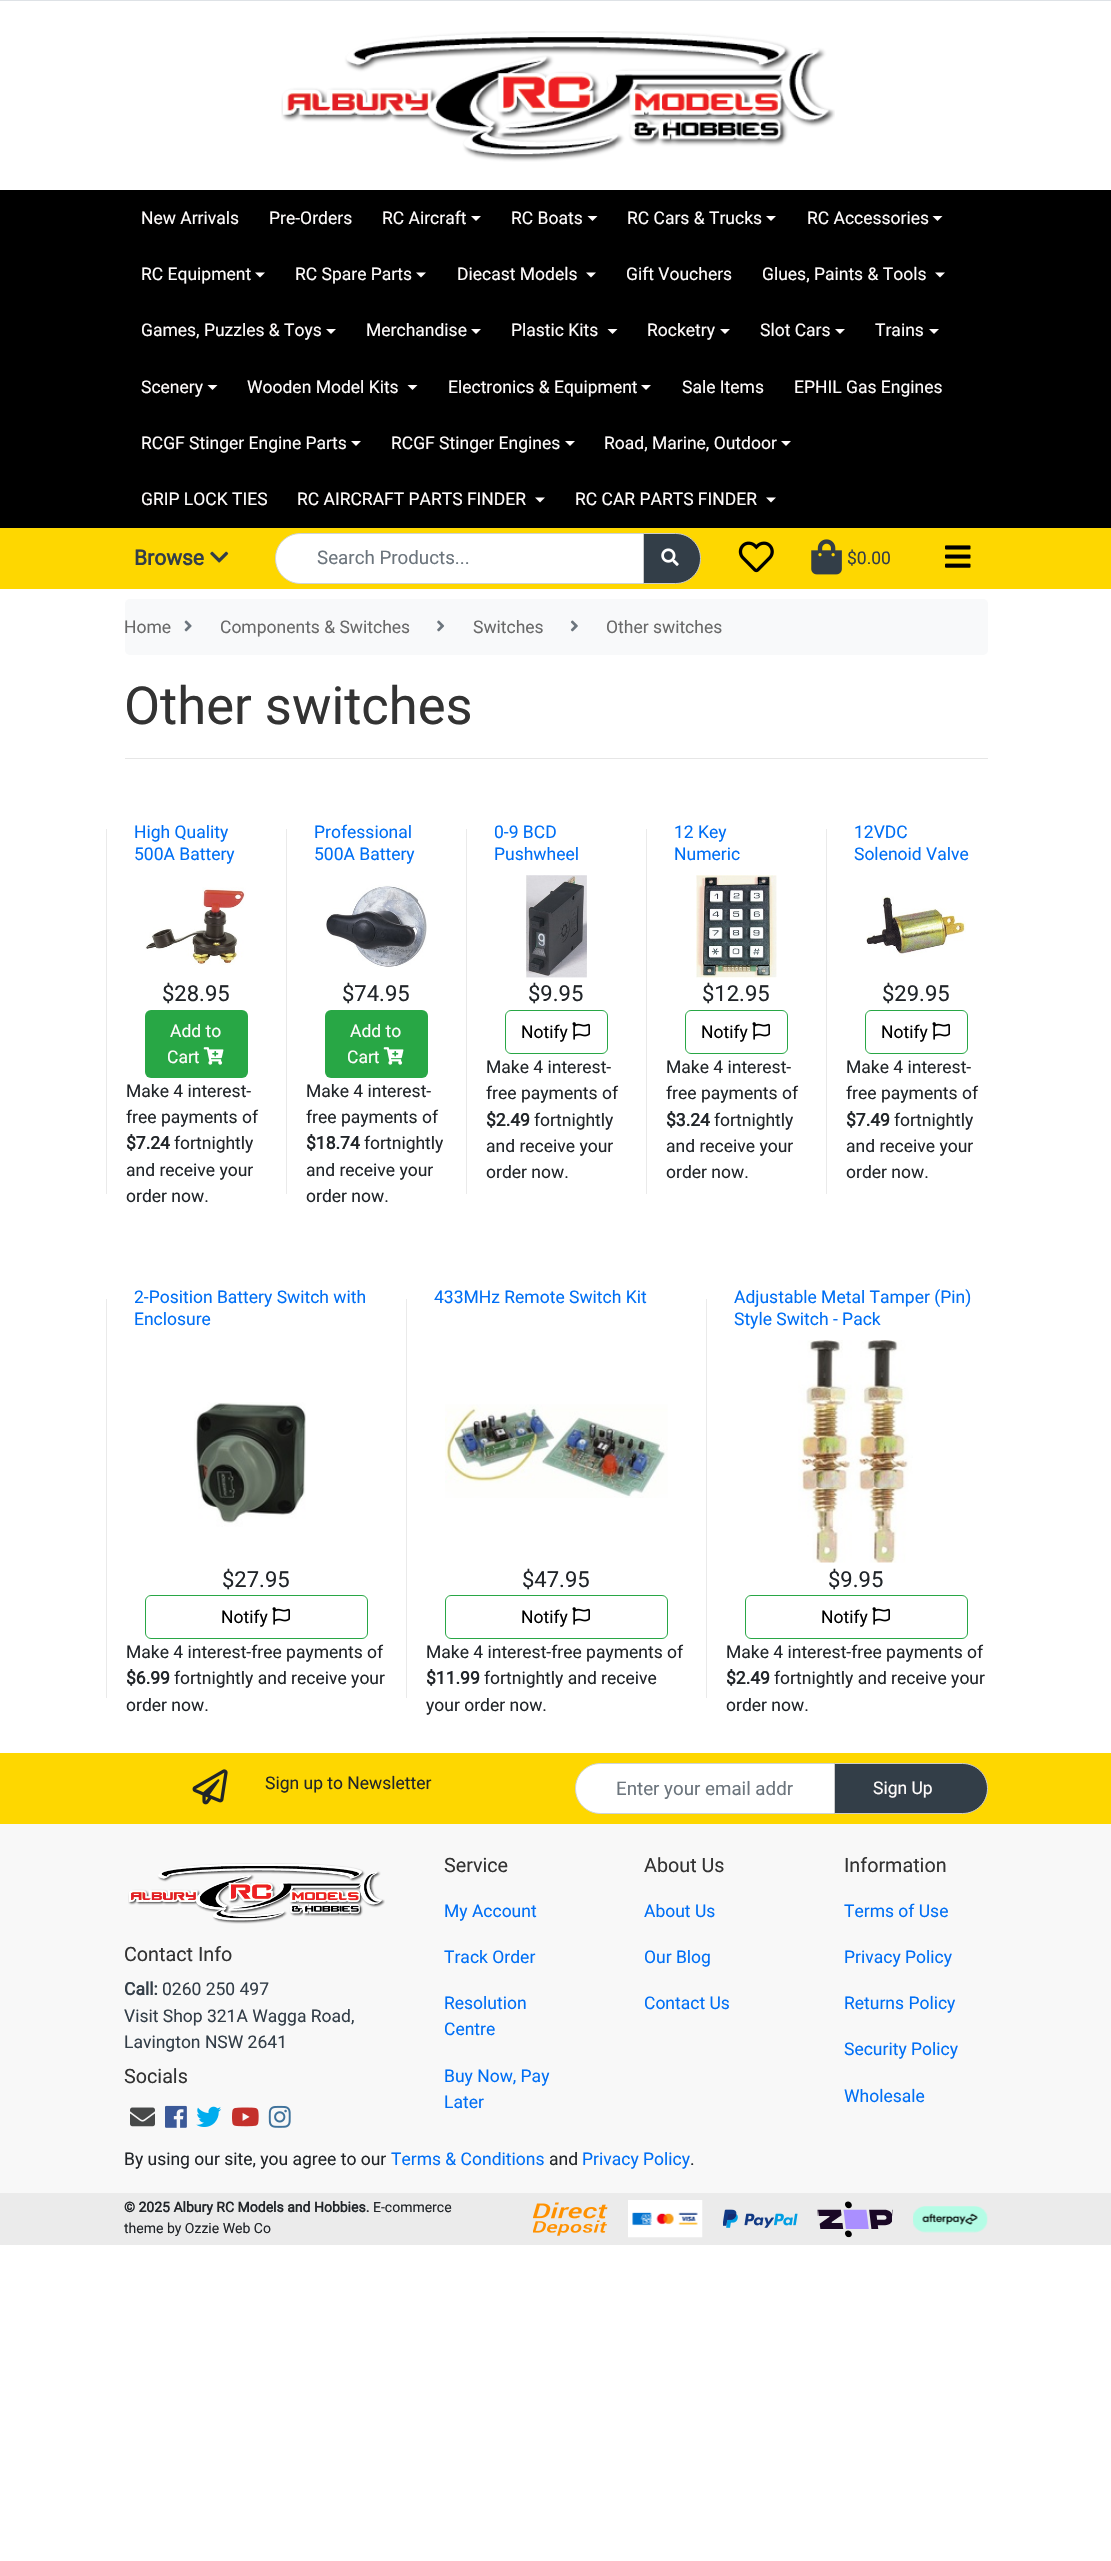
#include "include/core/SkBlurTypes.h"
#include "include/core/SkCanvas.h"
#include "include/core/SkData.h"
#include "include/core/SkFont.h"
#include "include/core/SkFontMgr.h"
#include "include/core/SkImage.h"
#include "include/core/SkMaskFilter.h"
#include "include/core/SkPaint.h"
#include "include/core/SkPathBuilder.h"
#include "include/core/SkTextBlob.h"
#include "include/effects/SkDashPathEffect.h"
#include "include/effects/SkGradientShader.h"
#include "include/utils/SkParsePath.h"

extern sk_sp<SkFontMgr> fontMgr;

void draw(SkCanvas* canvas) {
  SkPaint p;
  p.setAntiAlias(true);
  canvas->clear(SK_ColorWHITE);
  p.setColor(SkColorSetRGB(222, 226, 230));
  canvas->drawRect(SkRect::MakeLTRB(0, 0, 1111, 1), p);
  canvas->drawImageRect(SkImages::DeferredFromEncodedData(SkData::MakeFromFileName("images/1.png")), SkRect::MakeLTRB(281, 31, 835, 162), SkSamplingOptions());
  p.setColor(SK_ColorBLACK);
  canvas->drawRect(SkRect::MakeLTRB(0, 190, 1111, 528), p);
  p.setColor(SkColorSetRGB(255, 252, 252));
  canvas->drawPath(SkPathBuilder().moveTo(471, 216).lineTo(481, 216).lineTo(476, 221).close().detach(), p);
  canvas->drawPath(SkPathBuilder().moveTo(587.5f, 216).lineTo(597.5f, 216).lineTo(592.5f, 221).close().detach(), p);
  canvas->drawPath(SkPathBuilder().moveTo(766, 216).lineTo(776, 216).lineTo(771, 221).close().detach(), p);
  canvas->drawPath(SkPathBuilder().moveTo(932.5f, 216).lineTo(942.5f, 216).lineTo(937.5f, 221).close().detach(), p);
  canvas->drawPath(SkPathBuilder().moveTo(255, 272.5f).lineTo(265, 272.5f).lineTo(260, 277.5f).close().detach(), p);
  canvas->drawPath(SkPathBuilder().moveTo(416, 272.5f).lineTo(426, 272.5f).lineTo(421, 277.5f).close().detach(), p);
  canvas->drawPath(SkPathBuilder().moveTo(586, 272.5f).lineTo(596, 272.5f).lineTo(591, 277.5f).close().detach(), p);
  canvas->drawPath(SkPathBuilder().moveTo(935, 272.5f).lineTo(945, 272.5f).lineTo(940, 277.5f).close().detach(), p);
  canvas->drawPath(SkPathBuilder().moveTo(326, 329).lineTo(336, 329).lineTo(331, 334).close().detach(), p);
  canvas->drawPath(SkPathBuilder().moveTo(471, 329).lineTo(481, 329).lineTo(476, 334).close().detach(), p);
  canvas->drawPath(SkPathBuilder().moveTo(607.5f, 329).lineTo(617.5f, 329).lineTo(612.5f, 334).close().detach(), p);
  canvas->drawPath(SkPathBuilder().moveTo(720, 329).lineTo(730, 329).lineTo(725, 334).close().detach(), p);
  canvas->drawPath(SkPathBuilder().moveTo(835, 329).lineTo(845, 329).lineTo(840, 334).close().detach(), p);
  canvas->drawPath(SkPathBuilder().moveTo(929, 329).lineTo(939, 329).lineTo(934, 334).close().detach(), p);
  canvas->drawPath(SkPathBuilder().moveTo(207.5f, 385).lineTo(217.5f, 385).lineTo(212.5f, 390).close().detach(), p);
  canvas->drawPath(SkPathBuilder().moveTo(407.5f, 385).lineTo(417.5f, 385).lineTo(412.5f, 390).close().detach(), p);
  canvas->drawPath(SkPathBuilder().moveTo(641, 385).lineTo(651, 385).lineTo(646, 390).close().detach(), p);
  canvas->drawPath(SkPathBuilder().moveTo(351, 441).lineTo(361, 441).lineTo(356, 446).close().detach(), p);
  canvas->drawPath(SkPathBuilder().moveTo(565, 441).lineTo(575, 441).lineTo(570, 446).close().detach(), p);
  canvas->drawPath(SkPathBuilder().moveTo(781, 441).lineTo(791, 441).lineTo(786, 446).close().detach(), p);
  canvas->drawPath(SkPathBuilder().moveTo(535, 497.5f).lineTo(545, 497.5f).lineTo(540, 502.5f).close().detach(), p);
  canvas->drawPath(SkPathBuilder().moveTo(766, 497.5f).lineTo(776, 497.5f).lineTo(771, 502.5f).close().detach(), p);
  p.setColor(SkColorSetRGB(254, 215, 0));
  canvas->drawRect(SkRect::MakeLTRB(0, 528, 1111, 589), p);
  canvas->drawImageRect(SkImages::DeferredFromEncodedData(SkData::MakeFromFileName("images/2.png")), SkRect::MakeLTRB(210, 551, 229, 563), SkSamplingOptions());
  p.setColor(SK_ColorWHITE);
  canvas->drawPath(SkPathBuilder().moveTo(300.5f, 533.5f).lineTo(643.5f, 533.5f).lineTo(643.5f, 583.5f).lineTo(300.5f, 583.5f).cubicTo(286.5f, 583.5f, 275.5f, 572.5f, 275.5f, 558.5f).cubicTo(275.5f, 544.5f, 286.5f, 533.5f, 300.5f, 533.5f).close().detach(), p);
  p.setStyle(SkPaint::kStroke_Style);
  p.setStrokeWidth(1);
  p.setColor(SkColorSetRGB(206, 212, 218));
  canvas->drawPath(SkPathBuilder().moveTo(300.5f, 533.5f).lineTo(643.5f, 533.5f).lineTo(643.5f, 583.5f).lineTo(300.5f, 583.5f).cubicTo(286.5f, 583.5f, 275.5f, 572.5f, 275.5f, 558.5f).cubicTo(275.5f, 544.5f, 286.5f, 533.5f, 300.5f, 533.5f).close().detach(), p);
  p.setStyle(SkPaint::kFill_Style);
  p.setColor(SkColorSetRGB(51, 62, 72));
  canvas->drawPath(SkPathBuilder().moveTo(643.5f, 533.5f).lineTo(675.5f, 533.5f).cubicTo(689.5f, 533.5f, 700.5f, 544.5f, 700.5f, 558.5f).cubicTo(700.5f, 572.5f, 689.5f, 583.5f, 675.5f, 583.5f).lineTo(643.5f, 583.5f).close().detach(), p);
  p.setStyle(SkPaint::kStroke_Style);
  p.setColor(SkColorSetRGB(204, 204, 204));
  canvas->drawPath(SkPathBuilder().moveTo(643.5f, 533.5f).lineTo(675.5f, 533.5f).cubicTo(689.5f, 533.5f, 700.5f, 544.5f, 700.5f, 558.5f).cubicTo(700.5f, 572.5f, 689.5f, 583.5f, 675.5f, 583.5f).lineTo(643.5f, 583.5f).close().detach(), p);
  canvas->drawImageRect(SkImages::DeferredFromEncodedData(SkData::MakeFromFileName("images/3.png")), SkRect::MakeLTRB(661, 548, 679, 566), SkSamplingOptions());
  canvas->drawImageRect(SkImages::DeferredFromEncodedData(SkData::MakeFromFileName("images/4.png")), SkRect::MakeLTRB(738, 541, 774, 573), SkSamplingOptions());
  canvas->drawImageRect(SkImages::DeferredFromEncodedData(SkData::MakeFromFileName("images/5.png")), SkRect::MakeLTRB(811, 539, 842, 575), SkSamplingOptions());
  canvas->drawImageRect(SkImages::DeferredFromEncodedData(SkData::MakeFromFileName("images/6.png")), SkRect::MakeLTRB(945, 545, 971, 568), SkSamplingOptions());
  p.setStyle(SkPaint::kFill_Style);
  p.setColor(SkColorSetRGB(248, 249, 250));
  canvas->drawRoundRect(SkRect::MakeLTRB(125, 599, 988, 655), 5, 5, p);
  canvas->drawImageRect(SkImages::DeferredFromEncodedData(SkData::MakeFromFileName("images/7.png")), SkRect::MakeLTRB(184, 620, 192, 632), SkSamplingOptions());
  canvas->drawImageRect(SkImages::DeferredFromEncodedData(SkData::MakeFromFileName("images/8.png")), SkRect::MakeLTRB(437, 620, 445, 632), SkSamplingOptions());
  canvas->drawImageRect(SkImages::DeferredFromEncodedData(SkData::MakeFromFileName("images/9.png")), SkRect::MakeLTRB(570, 620, 578, 632), SkSamplingOptions());
  p.setColor(SkColorSetRGB(230, 230, 230));
  canvas->drawRect(SkRect::MakeLTRB(125, 758, 988, 759), p);
  p.setColor(SkColorSetRGB(234, 234, 234));
  canvas->drawRect(SkRect::MakeLTRB(106, 829, 107, 1194), p);
  canvas->drawImageRect(SkImages::DeferredFromEncodedData(SkData::MakeFromFileName("images/10.png")), SkRect::MakeLTRB(145, 887, 246, 965), SkSamplingOptions());
  p.setColor(SkColorSetRGB(40, 167, 69));
  canvas->drawRoundRect(SkRect::MakeLTRB(145, 1010, 248, 1078), 6, 6, p);
  canvas->drawImageRect(SkImages::DeferredFromEncodedData(SkData::MakeFromFileName("images/11.png")), SkRect::MakeLTRB(203, 1047, 224, 1065), SkSamplingOptions());
  p.setColor(SkColorSetRGB(234, 234, 234));
  canvas->drawRect(SkRect::MakeLTRB(286, 829, 287, 1194), p);
  canvas->drawImageRect(SkImages::DeferredFromEncodedData(SkData::MakeFromFileName("images/12.png")), SkRect::MakeLTRB(326, 885, 427, 967), SkSamplingOptions());
  p.setColor(SkColorSetRGB(40, 167, 69));
  canvas->drawRoundRect(SkRect::MakeLTRB(325, 1010, 428, 1078), 6, 6, p);
  canvas->drawImageRect(SkImages::DeferredFromEncodedData(SkData::MakeFromFileName("images/11.png")), SkRect::MakeLTRB(383, 1047, 404, 1065), SkSamplingOptions());
  p.setColor(SkColorSetRGB(234, 234, 234));
  canvas->drawRect(SkRect::MakeLTRB(466, 829, 467, 1194), p);
  canvas->drawImageRect(SkImages::DeferredFromEncodedData(SkData::MakeFromFileName("images/13.png")), SkRect::MakeLTRB(526, 875, 587, 978), SkSamplingOptions());
  p.setStyle(SkPaint::kStroke_Style);
  p.setColor(SkColorSetRGB(40, 167, 69));
  canvas->drawRoundRect(SkRect::MakeLTRB(505.5f, 1010.5f, 607.5f, 1053.5f), 5.5f, 5.5f, p);
  canvas->drawImageRect(SkImages::DeferredFromEncodedData(SkData::MakeFromFileName("images/14.png")), SkRect::MakeLTRB(572, 1022, 590, 1040), SkSamplingOptions());
  p.setStyle(SkPaint::kFill_Style);
  p.setColor(SkColorSetRGB(234, 234, 234));
  canvas->drawRect(SkRect::MakeLTRB(646, 829, 647, 1194), p);
  canvas->drawImageRect(SkImages::DeferredFromEncodedData(SkData::MakeFromFileName("images/15.png")), SkRect::MakeLTRB(696, 875, 777, 978), SkSamplingOptions());
  p.setStyle(SkPaint::kStroke_Style);
  p.setColor(SkColorSetRGB(40, 167, 69));
  canvas->drawRoundRect(SkRect::MakeLTRB(685.5f, 1010.5f, 787.5f, 1053.5f), 5.5f, 5.5f, p);
  canvas->drawImageRect(SkImages::DeferredFromEncodedData(SkData::MakeFromFileName("images/14.png")), SkRect::MakeLTRB(752, 1022, 770, 1040), SkSamplingOptions());
  p.setStyle(SkPaint::kFill_Style);
  p.setColor(SkColorSetRGB(234, 234, 234));
  canvas->drawRect(SkRect::MakeLTRB(826, 829, 827, 1194), p);
  canvas->drawImageRect(SkImages::DeferredFromEncodedData(SkData::MakeFromFileName("images/16.png")), SkRect::MakeLTRB(866, 896, 966, 957), SkSamplingOptions());
  p.setStyle(SkPaint::kStroke_Style);
  p.setColor(SkColorSetRGB(40, 167, 69));
  canvas->drawRoundRect(SkRect::MakeLTRB(865.5f, 1010.5f, 967.5f, 1053.5f), 5.5f, 5.5f, p);
  canvas->drawImageRect(SkImages::DeferredFromEncodedData(SkData::MakeFromFileName("images/14.png")), SkRect::MakeLTRB(932, 1022, 950, 1040), SkSamplingOptions());
  p.setStyle(SkPaint::kFill_Style);
  p.setColor(SkColorSetRGB(234, 234, 234));
  canvas->drawRect(SkRect::MakeLTRB(106, 1299, 107, 1698), p);
  canvas->drawImageRect(SkImages::DeferredFromEncodedData(SkData::MakeFromFileName("images/17.png")), SkRect::MakeLTRB(194, 1402, 306, 1527), SkSamplingOptions());
  p.setStyle(SkPaint::kStroke_Style);
  p.setColor(SkColorSetRGB(40, 167, 69));
  canvas->drawRoundRect(SkRect::MakeLTRB(145.5f, 1595.5f, 367.5f, 1638.5f), 5.5f, 5.5f, p);
  canvas->drawImageRect(SkImages::DeferredFromEncodedData(SkData::MakeFromFileName("images/14.png")), SkRect::MakeLTRB(272, 1607, 290, 1625), SkSamplingOptions());
  p.setStyle(SkPaint::kFill_Style);
  p.setColor(SkColorSetRGB(234, 234, 234));
  canvas->drawRect(SkRect::MakeLTRB(406, 1299, 407, 1698), p);
  canvas->drawImageRect(SkImages::DeferredFromEncodedData(SkData::MakeFromFileName("images/18.png")), SkRect::MakeLTRB(445, 1404, 668, 1498), SkSamplingOptions());
  p.setStyle(SkPaint::kStroke_Style);
  p.setColor(SkColorSetRGB(40, 167, 69));
  canvas->drawRoundRect(SkRect::MakeLTRB(445.5f, 1595.5f, 667.5f, 1638.5f), 5.5f, 5.5f, p);
  canvas->drawImageRect(SkImages::DeferredFromEncodedData(SkData::MakeFromFileName("images/14.png")), SkRect::MakeLTRB(572, 1607, 590, 1625), SkSamplingOptions());
  p.setStyle(SkPaint::kFill_Style);
  p.setColor(SkColorSetRGB(234, 234, 234));
  canvas->drawRect(SkRect::MakeLTRB(706, 1299, 707, 1698), p);
  canvas->drawImageRect(SkImages::DeferredFromEncodedData(SkData::MakeFromFileName("images/19.png")), SkRect::MakeLTRB(798, 1340, 913, 1563), SkSamplingOptions());
  p.setStyle(SkPaint::kStroke_Style);
  p.setColor(SkColorSetRGB(40, 167, 69));
  canvas->drawRoundRect(SkRect::MakeLTRB(745.5f, 1595.5f, 967.5f, 1638.5f), 5.5f, 5.5f, p);
  canvas->drawImageRect(SkImages::DeferredFromEncodedData(SkData::MakeFromFileName("images/14.png")), SkRect::MakeLTRB(872, 1607, 890, 1625), SkSamplingOptions());
  p.setStyle(SkPaint::kFill_Style);
  p.setColor(SkColorSetRGB(248, 248, 248));
  canvas->drawRect(SkRect::MakeLTRB(0, 1824, 1111, 2193), p);
  p.setColor(SkColorSetRGB(254, 215, 0));
  canvas->drawRect(SkRect::MakeLTRB(0, 1753, 1111, 1824), p);
  canvas->drawImageRect(SkImages::DeferredFromEncodedData(SkData::MakeFromFileName("images/20.png")), SkRect::MakeLTRB(192, 1769, 228, 1805), SkSamplingOptions());
  p.setColor(SK_ColorWHITE);
  canvas->drawPath(SkPathBuilder().moveTo(600.5f, 1763.5f).lineTo(834.5f, 1763.5f).lineTo(834.5f, 1813.5f).lineTo(600.5f, 1813.5f).cubicTo(586.5f, 1813.5f, 575.5f, 1802.5f, 575.5f, 1788.5f).cubicTo(575.5f, 1774.5f, 586.5f, 1763.5f, 600.5f, 1763.5f).close().detach(), p);
  p.setStyle(SkPaint::kStroke_Style);
  p.setColor(SkColorSetRGB(206, 212, 218));
  canvas->drawPath(SkPathBuilder().moveTo(600.5f, 1763.5f).lineTo(834.5f, 1763.5f).lineTo(834.5f, 1813.5f).lineTo(600.5f, 1813.5f).cubicTo(586.5f, 1813.5f, 575.5f, 1802.5f, 575.5f, 1788.5f).cubicTo(575.5f, 1774.5f, 586.5f, 1763.5f, 600.5f, 1763.5f).close().detach(), p);
  p.setStyle(SkPaint::kFill_Style);
  p.setColor(SkColorSetRGB(51, 62, 72));
  canvas->drawPath(SkPathBuilder().moveTo(834.5f, 1763.5f).lineTo(962.5f, 1763.5f).cubicTo(976.5f, 1763.5f, 987.5f, 1774.5f, 987.5f, 1788.5f).cubicTo(987.5f, 1802.5f, 976.5f, 1813.5f, 962.5f, 1813.5f).lineTo(834.5f, 1813.5f).close().detach(), p);
  p.setStyle(SkPaint::kStroke_Style);
  p.setColor(SkColorSetRGB(204, 204, 204));
  canvas->drawPath(SkPathBuilder().moveTo(834.5f, 1763.5f).lineTo(962.5f, 1763.5f).cubicTo(976.5f, 1763.5f, 987.5f, 1774.5f, 987.5f, 1788.5f).cubicTo(987.5f, 1802.5f, 976.5f, 1813.5f, 962.5f, 1813.5f).lineTo(834.5f, 1813.5f).close().detach(), p);
  canvas->drawImageRect(SkImages::DeferredFromEncodedData(SkData::MakeFromFileName("images/21.png")), SkRect::MakeLTRB(128, 1863, 385, 1924), SkSamplingOptions());
  canvas->drawImageRect(SkImages::DeferredFromEncodedData(SkData::MakeFromFileName("images/22.png")), SkRect::MakeLTRB(130, 2107, 155, 2127), SkSamplingOptions());
  canvas->drawImageRect(SkImages::DeferredFromEncodedData(SkData::MakeFromFileName("images/23.png")), SkRect::MakeLTRB(165, 2105, 187, 2128), SkSamplingOptions());
  canvas->drawImageRect(SkImages::DeferredFromEncodedData(SkData::MakeFromFileName("images/24.png")), SkRect::MakeLTRB(196, 2106, 222, 2127), SkSamplingOptions());
  canvas->drawImageRect(SkImages::DeferredFromEncodedData(SkData::MakeFromFileName("images/25.png")), SkRect::MakeLTRB(232, 2107, 259, 2127), SkSamplingOptions());
  canvas->drawImageRect(SkImages::DeferredFromEncodedData(SkData::MakeFromFileName("images/26.png")), SkRect::MakeLTRB(268, 2105, 291, 2128), SkSamplingOptions());
  p.setStyle(SkPaint::kFill_Style);
  p.setColor(SkColorSetRGB(235, 235, 235));
  canvas->drawRect(SkRect::MakeLTRB(0, 2193, 1111, 2245), p);
  canvas->drawImageRect(SkImages::DeferredFromEncodedData(SkData::MakeFromFileName("images/27.png")), SkRect::MakeLTRB(533, 2202, 608, 2236), SkSamplingOptions());
  canvas->drawImageRect(SkImages::DeferredFromEncodedData(SkData::MakeFromFileName("images/28.png")), SkRect::MakeLTRB(628, 2200, 703, 2238), SkSamplingOptions());
  canvas->drawImageRect(SkImages::DeferredFromEncodedData(SkData::MakeFromFileName("images/29.png")), SkRect::MakeLTRB(723, 2209, 798, 2228), SkSamplingOptions());
  canvas->drawImageRect(SkImages::DeferredFromEncodedData(SkData::MakeFromFileName("images/30.png")), SkRect::MakeLTRB(817, 2201, 893, 2238), SkSamplingOptions());
  canvas->drawImageRect(SkImages::DeferredFromEncodedData(SkData::MakeFromFileName("images/31.png")), SkRect::MakeLTRB(913, 2206, 988, 2233), SkSamplingOptions());
  SkFont font1(fontMgr->matchFamilyStyle("Roboto", SkFontStyle::Normal()), 17.5f);
  font1.setSubpixel(true);
  p.setColor(SkColorSetRGB(255, 252, 252));
  canvas->drawString("New Arrivals", 141, 224, font1, p);
  canvas->drawString("Pre-Orders", 269, 224, font1, p);
  canvas->drawString("RC Aircraft", 382, 224, font1, p);
  canvas->drawString("RC Boats", 511, 224, font1, p);
  canvas->drawString("RC Cars & Trucks", 627, 224, font1, p);
  canvas->drawString("RC Accessories", 807, 224, font1, p);
  canvas->drawString("RC Equipment", 141, 280, font1, p);
  canvas->drawString("RC Spare Parts", 295, 280, font1, p);
  canvas->drawString("Diecast Models", 457, 280, font1, p);
  canvas->drawString("Gift Vouchers", 626, 280, font1, p);
  canvas->drawString("Glues, Paints & Tools", 762, 280, font1, p);
  canvas->drawString("Games, Puzzles & Toys", 141, 336, font1, p);
  canvas->drawString("Merchandise", 366, 336, font1, p);
  canvas->drawString("Plastic Kits", 511, 336, font1, p);
  canvas->drawString("Rocketry", 647, 336, font1, p);
  canvas->drawString("Slot Cars", 760, 336, font1, p);
  canvas->drawString("Trains", 875, 336, font1, p);
  canvas->drawString("Scenery", 141, 393, font1, p);
  canvas->drawString("Wooden Model Kits", 247, 393, font1, p);
  canvas->drawString("Electronics & Equipment", 448, 393, font1, p);
  canvas->drawString("Sale Items", 682, 393, font1, p);
  canvas->drawString("EPHIL Gas Engines", 794, 393, font1, p);
  canvas->drawString("RCGF Stinger Engine Parts", 141, 449, font1, p);
  canvas->drawString("RCGF Stinger Engines", 391, 449, font1, p);
  canvas->drawString("Road, Marine, Outdoor", 604, 449, font1, p);
  canvas->drawString("GRIP LOCK TIES", 141, 505, font1, p);
  canvas->drawString("RC AIRCRAFT PARTS FINDER", 297, 505, font1, p);
  canvas->drawString("RC CAR PARTS FINDER", 575, 505, font1, p);
  SkFont font2(fontMgr->matchFamilyStyle("Roboto", SkFontStyle::Bold()), 21);
  font2.setSubpixel(true);
  p.setColor(SkColorSetRGB(51, 62, 72));
  canvas->drawString("Browse", 134, 565, font2, p);
  SkFont font3(fontMgr->matchFamilyStyle("Roboto", SkFontStyle::Normal()), 18.75f);
  font3.setSubpixel(true);
  p.setColor(SkColorSetRGB(108, 117, 125));
  canvas->drawString("Search Products...", 317, 564, font3, p);
  p.setColor(SkColorSetRGB(51, 62, 72));
  canvas->drawString("$0.00", 847, 564, font1, p);
  p.setColor(SkColorSetRGB(105, 105, 105));
  canvas->drawString("Home", 124, 633, font1, p);
  canvas->drawString("Components & Switches", 220, 633, font1, p);
  canvas->drawString("Switches", 473, 633, font1, p);
  canvas->drawString("Other switches", 606, 633, font1, p);
  SkFont font4(fontMgr->matchFamilyStyle("Roboto", SkFontStyle::Normal()), 52.5f);
  font4.setSubpixel(true);
  p.setColor(SkColorSetRGB(51, 51, 51));
  canvas->drawString("Other switches", 124, 724, font4, p);
  p.setColor(SkColorSetRGB(0, 111, 245));
  canvas->drawString("High Quality", 134, 838, font1, p);
  canvas->drawString("500A Battery", 134, 860, font1, p);
  SkFont font5(fontMgr->matchFamilyStyle("Roboto", SkFontStyle::Normal()), 22);
  font5.setSubpixel(true);
  p.setColor(SkColorSetRGB(33, 37, 41));
  canvas->drawString("$28.95", 162, 1001, font5, p);
  p.setColor(SkColorSetRGB(255, 252, 252));
  canvas->drawString("Add to", 170, 1037, font1, p);
  canvas->drawString("Cart", 167, 1063, font1, p);
  p.setColor(SkColorSetRGB(33, 37, 41));
  canvas->drawString("Make 4 interest-", 126, 1097, font1, p);
  canvas->drawString("free payments of", 126, 1123, font1, p);
  SkFont font6(fontMgr->matchFamilyStyle("Roboto", SkFontStyle::Bold()), 17.5f);
  font6.setSubpixel(true);
  canvas->drawString("$7.24", 126, 1149, font6, p);
  canvas->drawString("fortnightly", 174, 1149, font1, p);
  canvas->drawString("and receive your", 126, 1176, font1, p);
  canvas->drawString("order now.", 126, 1202, font1, p);
  p.setColor(SkColorSetRGB(0, 111, 245));
  canvas->drawString("Professional", 314, 838, font1, p);
  canvas->drawString("500A Battery", 314, 860, font1, p);
  p.setColor(SkColorSetRGB(33, 37, 41));
  canvas->drawString("$74.95", 342, 1001, font5, p);
  p.setColor(SkColorSetRGB(255, 252, 252));
  canvas->drawString("Add to", 350, 1037, font1, p);
  canvas->drawString("Cart", 347, 1063, font1, p);
  p.setColor(SkColorSetRGB(33, 37, 41));
  canvas->drawString("Make 4 interest-", 306, 1097, font1, p);
  canvas->drawString("free payments of", 306, 1123, font1, p);
  canvas->drawString("$18.74", 306, 1149, font6, p);
  canvas->drawString("fortnightly", 364, 1149, font1, p);
  canvas->drawString("and receive your", 306, 1176, font1, p);
  canvas->drawString("order now.", 306, 1202, font1, p);
  p.setColor(SkColorSetRGB(0, 111, 245));
  canvas->drawString("0-9 BCD", 494, 838, font1, p);
  canvas->drawString("Pushwheel", 494, 860, font1, p);
  p.setColor(SkColorSetRGB(33, 37, 41));
  canvas->drawString("$9.95", 528, 1001, font5, p);
  p.setColor(SK_ColorBLACK);
  canvas->drawString("Notify", 521, 1038, font1, p);
  p.setColor(SkColorSetRGB(33, 37, 41));
  canvas->drawString("Make 4 interest-", 486, 1073, font1, p);
  canvas->drawString("free payments of", 486, 1099, font1, p);
  canvas->drawString("$2.49", 486, 1126, font6, p);
  canvas->drawString("fortnightly", 534, 1126, font1, p);
  canvas->drawString("and receive your", 486, 1152, font1, p);
  canvas->drawString("order now.", 486, 1178, font1, p);
  p.setColor(SkColorSetRGB(0, 111, 245));
  canvas->drawString("12 Key", 674, 838, font1, p);
  canvas->drawString("Numeric", 674, 860, font1, p);
  p.setColor(SkColorSetRGB(33, 37, 41));
  canvas->drawString("$12.95", 702, 1001, font5, p);
  p.setColor(SK_ColorBLACK);
  canvas->drawString("Notify", 701, 1038, font1, p);
  p.setColor(SkColorSetRGB(33, 37, 41));
  canvas->drawString("Make 4 interest-", 666, 1073, font1, p);
  canvas->drawString("free payments of", 666, 1099, font1, p);
  canvas->drawString("$3.24", 666, 1126, font6, p);
  canvas->drawString("fortnightly", 714, 1126, font1, p);
  canvas->drawString("and receive your", 666, 1152, font1, p);
  canvas->drawString("order now.", 666, 1178, font1, p);
  p.setColor(SkColorSetRGB(0, 111, 245));
  canvas->drawString("12VDC", 854, 838, font1, p);
  canvas->drawString("Solenoid Valve", 854, 860, font1, p);
  p.setColor(SkColorSetRGB(33, 37, 41));
  canvas->drawString("$29.95", 882, 1001, font5, p);
  p.setColor(SK_ColorBLACK);
  canvas->drawString("Notify", 881, 1038, font1, p);
  p.setColor(SkColorSetRGB(33, 37, 41));
  canvas->drawString("Make 4 interest-", 846, 1073, font1, p);
  canvas->drawString("free payments of", 846, 1099, font1, p);
  canvas->drawString("$7.49", 846, 1126, font6, p);
  canvas->drawString("fortnightly", 894, 1126, font1, p);
  canvas->drawString("and receive your", 846, 1152, font1, p);
  canvas->drawString("order now.", 846, 1178, font1, p);
  p.setColor(SkColorSetRGB(0, 111, 245));
  canvas->drawString("2-Position Battery Switch with", 134, 1303, font1, p);
  canvas->drawString("Enclosure", 134, 1325, font1, p);
  p.setColor(SkColorSetRGB(33, 37, 41));
  canvas->drawString("$27.95", 222, 1587, font5, p);
  p.setColor(SK_ColorBLACK);
  canvas->drawString("Notify", 221, 1623, font1, p);
  p.setColor(SkColorSetRGB(33, 37, 41));
  canvas->drawString("Make 4 interest-free payments of", 126, 1658, font1, p);
  canvas->drawString("$6.99", 126, 1684, font6, p);
  canvas->drawString("fortnightly and receive your", 174, 1684, font1, p);
  canvas->drawString("order now.", 126, 1711, font1, p);
  p.setColor(SkColorSetRGB(0, 111, 245));
  canvas->drawString("433MHz Remote Switch Kit", 434, 1303, font1, p);
  p.setColor(SkColorSetRGB(33, 37, 41));
  canvas->drawString("$47.95", 522, 1587, font5, p);
  p.setColor(SK_ColorBLACK);
  canvas->drawString("Notify", 521, 1623, font1, p);
  p.setColor(SkColorSetRGB(33, 37, 41));
  canvas->drawString("Make 4 interest-free payments of", 426, 1658, font1, p);
  canvas->drawString("$11.99", 426, 1684, font6, p);
  canvas->drawString("fortnightly and receive", 484, 1684, font1, p);
  canvas->drawString("your order now.", 426, 1711, font1, p);
  p.setColor(SkColorSetRGB(0, 111, 245));
  canvas->drawString("Adjustable Metal Tamper (Pin)", 734, 1303, font1, p);
  canvas->drawString("Style Switch - Pack", 734, 1325, font1, p);
  p.setColor(SkColorSetRGB(33, 37, 41));
  canvas->drawString("$9.95", 828, 1587, font5, p);
  p.setColor(SK_ColorBLACK);
  canvas->drawString("Notify", 821, 1623, font1, p);
  p.setColor(SkColorSetRGB(33, 37, 41));
  canvas->drawString("Make 4 interest-free payments of", 726, 1658, font1, p);
  canvas->drawString("$2.49", 726, 1684, font6, p);
  canvas->drawString("fortnightly and receive your", 774, 1684, font1, p);
  canvas->drawString("order now.", 726, 1711, font1, p);
  canvas->drawString("Sign up to Newsletter", 265, 1789, font1, p);
  p.setColor(SkColorSetRGB(108, 117, 125));
  canvas->drawString("Enter your email addr", 616, 1795, font3, p);
  p.setColor(SkColorSetRGB(255, 252, 252));
  canvas->drawString("Sign Up", 873, 1794, font1, p);
  SkFont font7(fontMgr->matchFamilyStyle("Roboto", SkFontStyle::Normal()), 19.75f);
  font7.setSubpixel(true);
  p.setColor(SkColorSetRGB(51, 51, 51));
  canvas->drawString("Contact Info", 124, 1961, font7, p);
  p.setColor(SkColorSetRGB(51, 62, 72));
  canvas->drawString("Call:", 124, 1995, font6, p);
  canvas->drawString("0260 250 497", 162, 1995, font1, p);
  canvas->drawString("Visit Shop 321A Wagga Road,", 124, 2022, font1, p);
  canvas->drawString("Lavington NSW 2641", 124, 2048, font1, p);
  p.setColor(SkColorSetRGB(51, 51, 51));
  canvas->drawString("Socials", 124, 2083, font7, p);
  canvas->drawString("Service", 444, 1872, font7, p);
  p.setColor(SkColorSetRGB(0, 111, 245));
  canvas->drawString("My Account", 444, 1917, font1, p);
  canvas->drawString("Track Order", 444, 1963, font1, p);
  canvas->drawString("Resolution", 444, 2009, font1, p);
  canvas->drawString("Centre", 444, 2035, font1, p);
  canvas->drawString("Buy Now, Pay", 444, 2082, font1, p);
  canvas->drawString("Later", 444, 2108, font1, p);
  p.setColor(SkColorSetRGB(51, 51, 51));
  canvas->drawString("About Us", 644, 1872, font7, p);
  p.setColor(SkColorSetRGB(0, 111, 245));
  canvas->drawString("About Us", 644, 1917, font1, p);
  canvas->drawString("Our Blog", 644, 1963, font1, p);
  canvas->drawString("Contact Us", 644, 2009, font1, p);
  p.setColor(SkColorSetRGB(51, 51, 51));
  canvas->drawString("Information", 844, 1872, font7, p);
  p.setColor(SkColorSetRGB(0, 111, 245));
  canvas->drawString("Terms of Use", 844, 1917, font1, p);
  canvas->drawString("Privacy Policy", 844, 1963, font1, p);
  canvas->drawString("Returns Policy", 844, 2009, font1, p);
  canvas->drawString("Security Policy", 844, 2055, font1, p);
  canvas->drawString("Wholesale", 844, 2102, font1, p);
  p.setColor(SkColorSetRGB(33, 37, 41));
  canvas->drawString("By using our site, you agree to our", 124, 2165, font1, p);
  p.setColor(SkColorSetRGB(0, 111, 245));
  canvas->drawString("Terms & Conditions", 391, 2165, font1, p);
  p.setColor(SkColorSetRGB(33, 37, 41));
  canvas->drawString("and", 549, 2165, font1, p);
  p.setColor(SkColorSetRGB(0, 111, 245));
  canvas->drawString("Privacy Policy", 582, 2165, font1, p);
  p.setColor(SkColorSetRGB(33, 37, 41));
  canvas->drawString(".", 690, 2165, font1, p);
  SkFont font8(fontMgr->matchFamilyStyle("Roboto", SkFontStyle::Bold()), 14);
  font8.setSubpixel(true);
  canvas->drawString("© 2025 Albury RC Models and Hobbies.", 124, 2212, font8, p);
  SkFont font9(fontMgr->matchFamilyStyle("Roboto", SkFontStyle::Normal()), 14);
  font9.setSubpixel(true);
  canvas->drawString("E-commerce", 373, 2212, font9, p);
  canvas->drawString("theme by Ozzie Web Co", 124, 2233, font9, p);
}
